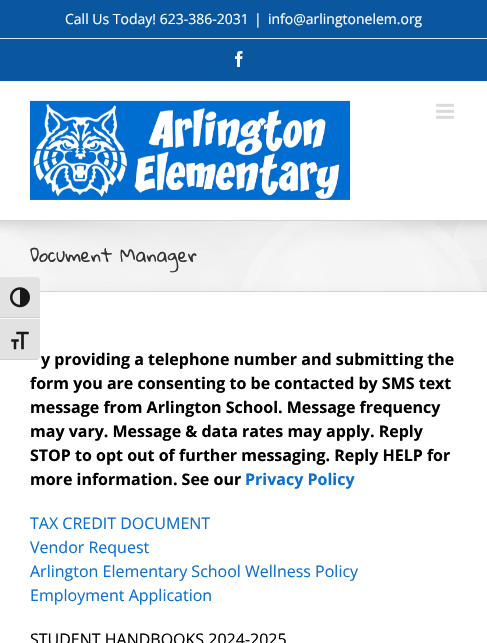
#include "include/core/SkBlurTypes.h"
#include "include/core/SkCanvas.h"
#include "include/core/SkData.h"
#include "include/core/SkFont.h"
#include "include/core/SkFontMgr.h"
#include "include/core/SkImage.h"
#include "include/core/SkMaskFilter.h"
#include "include/core/SkPaint.h"
#include "include/core/SkPathBuilder.h"
#include "include/core/SkTextBlob.h"
#include "include/effects/SkDashPathEffect.h"
#include "include/effects/SkGradientShader.h"
#include "include/utils/SkParsePath.h"

extern sk_sp<SkFontMgr> fontMgr;

void draw(SkCanvas* canvas) {
  SkPaint p;
  p.setAntiAlias(true);
  canvas->clear(SK_ColorWHITE);
  p.setColor(SkColorSetRGB(246, 246, 246));
  canvas->drawRect(SkRect::MakeLTRB(0, 221, 487, 291), p);
  canvas->drawImageRect(SkImages::DeferredFromEncodedData(SkData::MakeFromFileName("images/6.png")), SkRect::MakeLTRB(0, 221, 487, 291), SkSamplingOptions());
  p.setColor(SkColorSetRGB(226, 226, 226));
  canvas->drawPath(SkPathBuilder().moveTo(0, 276).lineTo(36, 276).cubicTo(38, 276, 40, 278, 40, 280).lineTo(40, 318).lineTo(0, 318).close().detach(), p);
  p.setColor(SkColorSetRGB(245, 245, 245));
  canvas->drawPath(SkPathBuilder().moveTo(0, 276).lineTo(0, 277).lineTo(36, 277).cubicTo(38, 277, 40, 278, 40, 280).cubicTo(40, 278, 38, 276, 36, 276).close().detach(), p);
  p.setColor(SkColorSetRGB(210, 210, 210));
  canvas->drawRect(SkRect::MakeLTRB(0, 317, 40, 318), p);
  canvas->drawImageRect(SkImages::DeferredFromEncodedData(SkData::MakeFromFileName("images/1.png")), SkRect::MakeLTRB(10, 287, 30, 308), SkSamplingOptions());
  p.setColor(SkColorSetRGB(226, 226, 226));
  canvas->drawPath(SkPathBuilder().moveTo(0, 318).lineTo(40, 318).lineTo(40, 356).cubicTo(40, 358, 38, 360, 36, 360).lineTo(0, 360).close().detach(), p);
  p.setColor(SkColorSetRGB(245, 245, 245));
  canvas->drawRect(SkRect::MakeLTRB(0, 318, 40, 319), p);
  p.setColor(SkColorSetRGB(210, 210, 210));
  canvas->drawPath(SkPathBuilder().moveTo(0, 359).lineTo(0, 360).lineTo(36, 360).cubicTo(38, 360, 40, 358, 40, 356).cubicTo(40, 358, 38, 359, 36, 359).close().detach(), p);
  canvas->drawImageRect(SkImages::DeferredFromEncodedData(SkData::MakeFromFileName("images/2.png")), SkRect::MakeLTRB(11, 331, 29, 350), SkSamplingOptions());
  p.setColor(SkColorSetRGB(11, 87, 159));
  canvas->drawRect(SkRect::MakeLTRB(0, 0, 487, 81), p);
  p.setColor(SkColorSetRGB(229, 229, 229));
  canvas->drawRect(SkRect::MakeLTRB(0, 38, 487, 39), p);
  canvas->drawImageRect(SkImages::DeferredFromEncodedData(SkData::MakeFromFileName("images/3.png")), SkRect::MakeLTRB(235, 51, 243, 67), SkSamplingOptions());
  canvas->drawImageRect(SkImages::DeferredFromEncodedData(SkData::MakeFromFileName("images/4.png")), SkRect::MakeLTRB(30, 100, 350, 200), SkSamplingOptions());
  canvas->drawImageRect(SkImages::DeferredFromEncodedData(SkData::MakeFromFileName("images/5.png")), SkRect::MakeLTRB(436, 103, 454, 119), SkSamplingOptions());
  p.setColor(SkColorSetRGB(210, 211, 212));
  canvas->drawRect(SkRect::MakeLTRB(0, 220, 487, 221), p);
  canvas->drawRect(SkRect::MakeLTRB(40, 291, 487, 292), p);
  SkFont font1(fontMgr->matchFamilyStyle("Open Sans", SkFontStyle::Normal()), 14);
  font1.setSubpixel(true);
  p.setColor(SK_ColorWHITE);
  canvas->drawString("Call Us Today! 623-386-2031", 65, 24, font1, p);
  canvas->drawString("|", 254, 24, font1, p);
  canvas->drawString("info@arlingtonelem.org", 268, 24, font1, p);
  SkFont font2(fontMgr->matchFamilyStyle("Gloria Hallelujah", SkFontStyle::Normal()), 18);
  font2.setSubpixel(true);
  p.setColor(SkColorSetRGB(51, 51, 51));
  canvas->drawString("Document Manager", 30, 262, font2, p);
  SkFont font3(fontMgr->matchFamilyStyle("Open Sans", SkFontStyle::Bold()), 16);
  font3.setSubpixel(true);
  p.setColor(SK_ColorBLACK);
  canvas->drawString("y providing a telephone number and submitting the", 41, 365, font3, p);
  canvas->drawString("form you are consenting to be contacted by SMS text", 30, 389, font3, p);
  canvas->drawString("message from Arlington School. Message frequency", 30, 413, font3, p);
  canvas->drawString("may vary. Message & data rates may apply. Reply", 30, 437, font3, p);
  canvas->drawString("STOP to opt out of further messaging. Reply HELP for", 30, 461, font3, p);
  canvas->drawString("more information. See our", 30, 485, font3, p);
  p.setColor(SkColorSetRGB(13, 112, 206));
  canvas->drawString("Privacy Policy", 245, 485, font3, p);
  SkFont font4(fontMgr->matchFamilyStyle("Open Sans", SkFontStyle::Normal()), 16);
  font4.setSubpixel(true);
  canvas->drawString("TAX CREDIT DOCUMENT", 30, 529, font4, p);
  canvas->drawString("Vendor Request", 30, 553, font4, p);
  canvas->drawString("Arlington Elementary School Wellness Policy", 30, 577, font4, p);
  canvas->drawString("Employment Application", 30, 601, font4, p);
  p.setColor(SK_ColorBLACK);
  canvas->drawString("STUDENT HANDBOOKS 2024-2025", 30, 645, font4, p);
}
